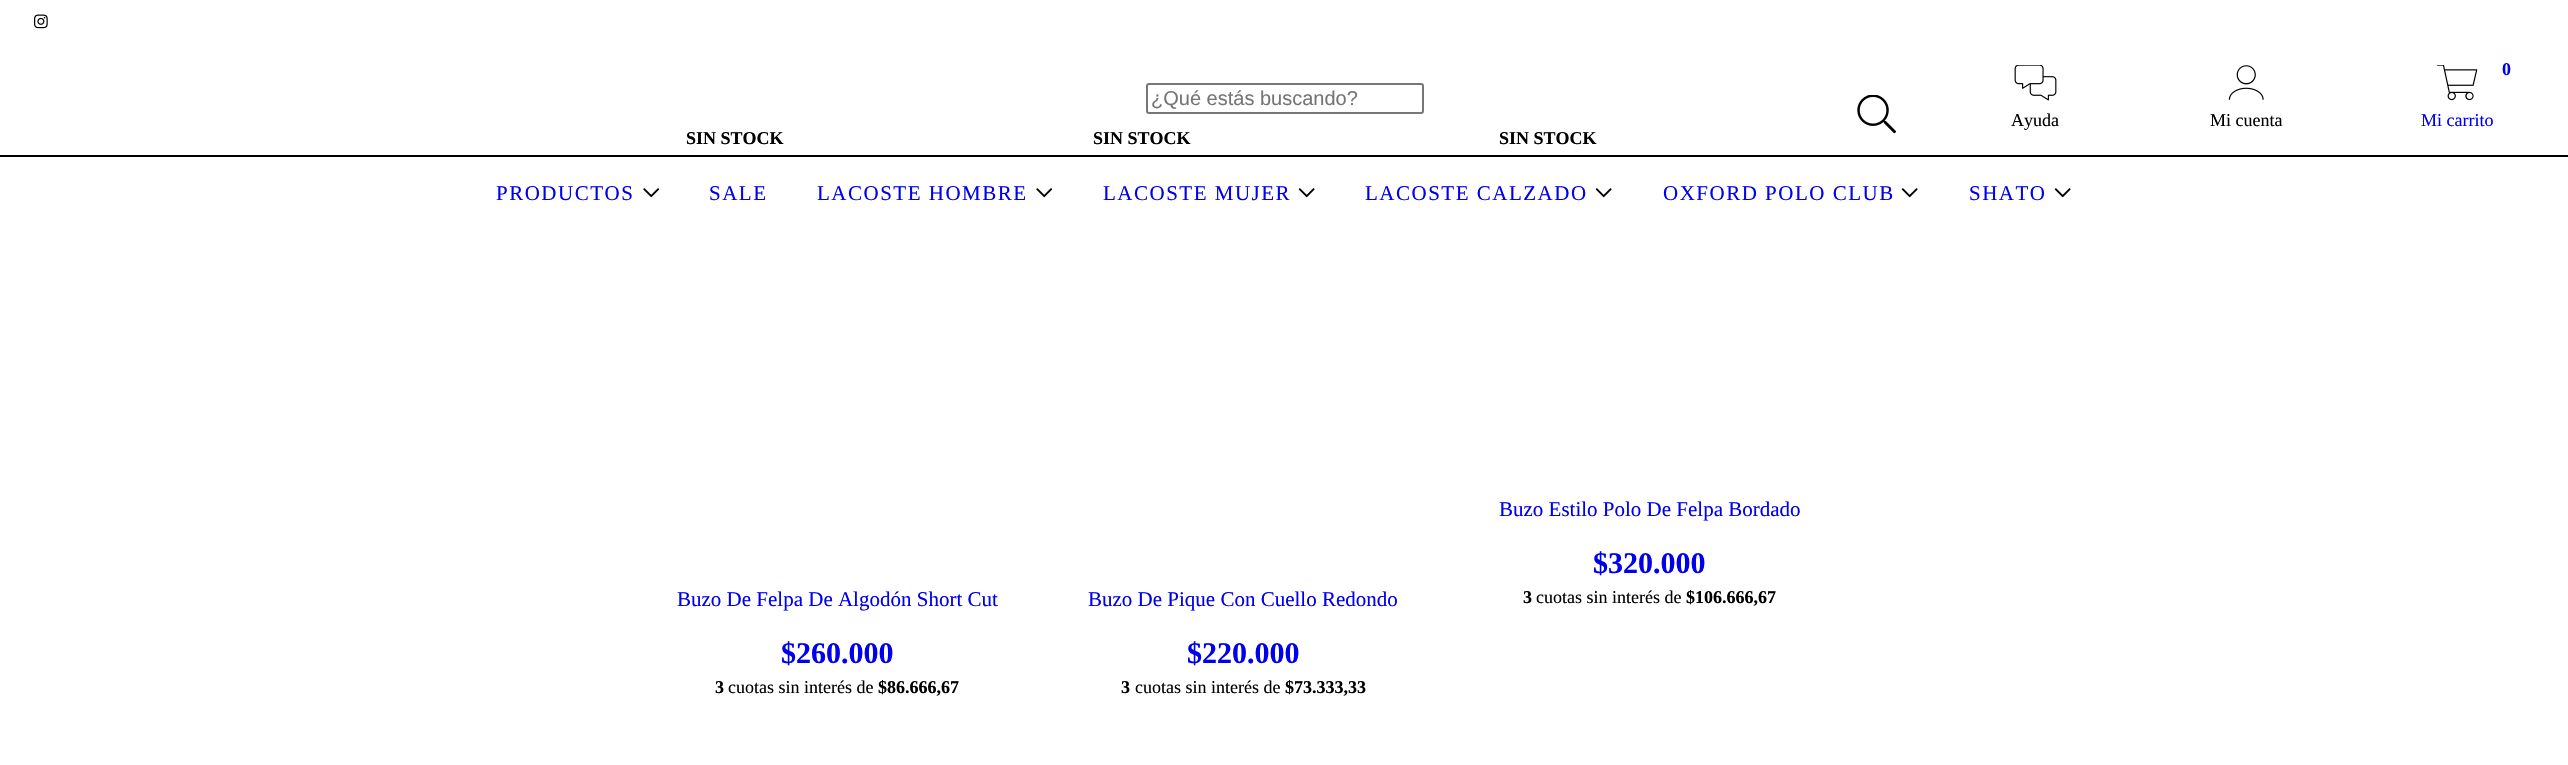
#include "include/core/SkBlurTypes.h"
#include "include/core/SkCanvas.h"
#include "include/core/SkData.h"
#include "include/core/SkFont.h"
#include "include/core/SkFontMgr.h"
#include "include/core/SkImage.h"
#include "include/core/SkMaskFilter.h"
#include "include/core/SkPaint.h"
#include "include/core/SkPathBuilder.h"
#include "include/core/SkTextBlob.h"
#include "include/effects/SkDashPathEffect.h"
#include "include/effects/SkGradientShader.h"
#include "include/utils/SkParsePath.h"

extern sk_sp<SkFontMgr> fontMgr;

void draw(SkCanvas* canvas) {
  SkPaint p;
  p.setAntiAlias(true);
  auto spacedText = [&](const char* s, float x, float y, const SkFont& font, const SkPaint& ink, float letter, float word) {
    std::vector<SkGlyphID> glyphs(font.countText(s, strlen(s), SkTextEncoding::kUTF8));
    std::vector<float> xs(glyphs.size());
    font.textToGlyphs(s, strlen(s), SkTextEncoding::kUTF8, glyphs);
    font.getXPos(glyphs, xs, x);
    float extra = 0;
    for (size_t i = 0; i < glyphs.size(); i++) {
      xs[i] += extra;
      extra += letter + word * (glyphs[i] == font.unicharToGlyph(' '));
    }
    canvas->drawTextBlob(SkTextBlob::MakeFromPosHGlyphs(glyphs, xs, y, font), 0, 0, ink);
  };
  canvas->clear(SK_ColorWHITE);
  canvas->drawImageRect(SkImages::DeferredFromEncodedData(SkData::MakeFromFileName("images/1.png")), SkRect::MakeLTRB(34, 14, 48, 29), SkSamplingOptions());
  p.setStyle(SkPaint::kStroke_Style);
  p.setStrokeWidth(2);
  p.setColor(SkColorSetRGB(118, 118, 118));
  canvas->drawRoundRect(SkRect::MakeLTRB(1147, 84, 1423, 113), 2, 2, p);
  canvas->drawImageRect(SkImages::DeferredFromEncodedData(SkData::MakeFromFileName("images/2.png")), SkRect::MakeLTRB(1857, 95, 1896, 134), SkSamplingOptions());
  canvas->drawImageRect(SkImages::DeferredFromEncodedData(SkData::MakeFromFileName("images/3.png")), SkRect::MakeLTRB(2014, 65, 2057, 101), SkSamplingOptions());
  canvas->drawImageRect(SkImages::DeferredFromEncodedData(SkData::MakeFromFileName("images/4.png")), SkRect::MakeLTRB(2228, 65, 2264, 100), SkSamplingOptions());
  canvas->drawImageRect(SkImages::DeferredFromEncodedData(SkData::MakeFromFileName("images/5.png")), SkRect::MakeLTRB(2436, 65, 2478, 101), SkSamplingOptions());
  p.setStyle(SkPaint::kFill_Style);
  p.setColor(SK_ColorBLACK);
  canvas->drawRect(SkRect::MakeLTRB(0, 155, 2568, 157), p);
  canvas->drawImageRect(SkImages::DeferredFromEncodedData(SkData::MakeFromFileName("images/6.png")), SkRect::MakeLTRB(643, 188, 660, 198), SkSamplingOptions());
  canvas->drawImageRect(SkImages::DeferredFromEncodedData(SkData::MakeFromFileName("images/6.png")), SkRect::MakeLTRB(1036, 188, 1053, 198), SkSamplingOptions());
  canvas->drawImageRect(SkImages::DeferredFromEncodedData(SkData::MakeFromFileName("images/7.png")), SkRect::MakeLTRB(1298, 188, 1315, 198), SkSamplingOptions());
  canvas->drawImageRect(SkImages::DeferredFromEncodedData(SkData::MakeFromFileName("images/7.png")), SkRect::MakeLTRB(1595, 188, 1612, 198), SkSamplingOptions());
  canvas->drawImageRect(SkImages::DeferredFromEncodedData(SkData::MakeFromFileName("images/7.png")), SkRect::MakeLTRB(1901, 188, 1918, 198), SkSamplingOptions());
  canvas->drawImageRect(SkImages::DeferredFromEncodedData(SkData::MakeFromFileName("images/7.png")), SkRect::MakeLTRB(2054, 188, 2071, 198), SkSamplingOptions());
  SkFont font1(fontMgr->matchFamilyStyle("Liberation Sans", SkFontStyle::Normal()), 20);
  font1.setSubpixel(true);
  p.setColor(SkColorSetRGB(117, 117, 117));
  canvas->drawString("¿Qué estás buscando?", 1151, 105, font1, p);
  SkFont font2(fontMgr->matchFamilyStyle("Liberation Serif", SkFontStyle::Normal()), 18);
  font2.setSubpixel(true);
  p.setColor(SK_ColorBLACK);
  canvas->drawString("Ayuda", 2011, 126, font2, p);
  canvas->drawString("Mi cuenta", 2210, 126, font2, p);
  SkFont font3(fontMgr->matchFamilyStyle("Liberation Serif", SkFontStyle::Bold()), 18);
  font3.setSubpixel(true);
  p.setColor(SkColorSetRGB(0, 0, 238));
  canvas->drawString("0", 2502, 75, font3, p);
  canvas->drawString("Mi carrito", 2421, 126, font2, p);
  SkFont font4(fontMgr->matchFamilyStyle("Liberation Serif", SkFontStyle::Normal()), 21);
  font4.setSubpixel(true);
  spacedText("PRODUCTOS", 496, 200, font4, p, 1.5f, 0);
  spacedText("SALE", 709, 200, font4, p, 1.5f, 0);
  spacedText("LACOSTE HOMBRE", 817, 200, font4, p, 1.5f, 0);
  spacedText("LACOSTE MUJER", 1103, 200, font4, p, 1.5f, 0);
  spacedText("LACOSTE CALZADO", 1365, 200, font4, p, 1.5f, 0);
  spacedText("OXFORD POLO CLUB", 1663, 200, font4, p, 1.5f, 0);
  spacedText("SHATO", 1969, 200, font4, p, 1.5f, 0);
  p.setColor(SK_ColorBLACK);
  canvas->drawString("SIN STOCK", 686, 144, font3, p);
  p.setColor(SkColorSetRGB(0, 0, 238));
  canvas->drawString("Buzo De Felpa De Algodón Short Cut", 677, 606, font4, p);
  SkFont font5(fontMgr->matchFamilyStyle("Liberation Serif", SkFontStyle::Bold()), 30);
  font5.setSubpixel(true);
  canvas->drawString("$260.000", 781, 663, font5, p);
  p.setColor(SK_ColorBLACK);
  canvas->drawString("3", 715, 693, font3, p);
  canvas->drawString("cuotas sin interés de", 728, 693, font2, p);
  canvas->drawString("$86.666,67", 878, 693, font3, p);
  canvas->drawString("SIN STOCK", 1093, 144, font3, p);
  p.setColor(SkColorSetRGB(0, 0, 238));
  canvas->drawString("Buzo De Pique Con Cuello Redondo", 1088, 606, font4, p);
  canvas->drawString("$220.000", 1187, 663, font5, p);
  p.setColor(SK_ColorBLACK);
  canvas->drawString("3", 1121, 693, font3, p);
  canvas->drawString("cuotas sin interés de", 1135, 693, font2, p);
  canvas->drawString("$73.333,33", 1285, 693, font3, p);
  canvas->drawString("SIN STOCK", 1499, 144, font3, p);
  p.setColor(SkColorSetRGB(0, 0, 238));
  canvas->drawString("Buzo Estilo Polo De Felpa Bordado", 1499, 516, font4, p);
  canvas->drawString("$320.000", 1593, 573, font5, p);
  p.setColor(SK_ColorBLACK);
  canvas->drawString("3", 1523, 603, font3, p);
  canvas->drawString("cuotas sin interés de", 1536, 603, font2, p);
  canvas->drawString("$106.666,67", 1686, 603, font3, p);
}
